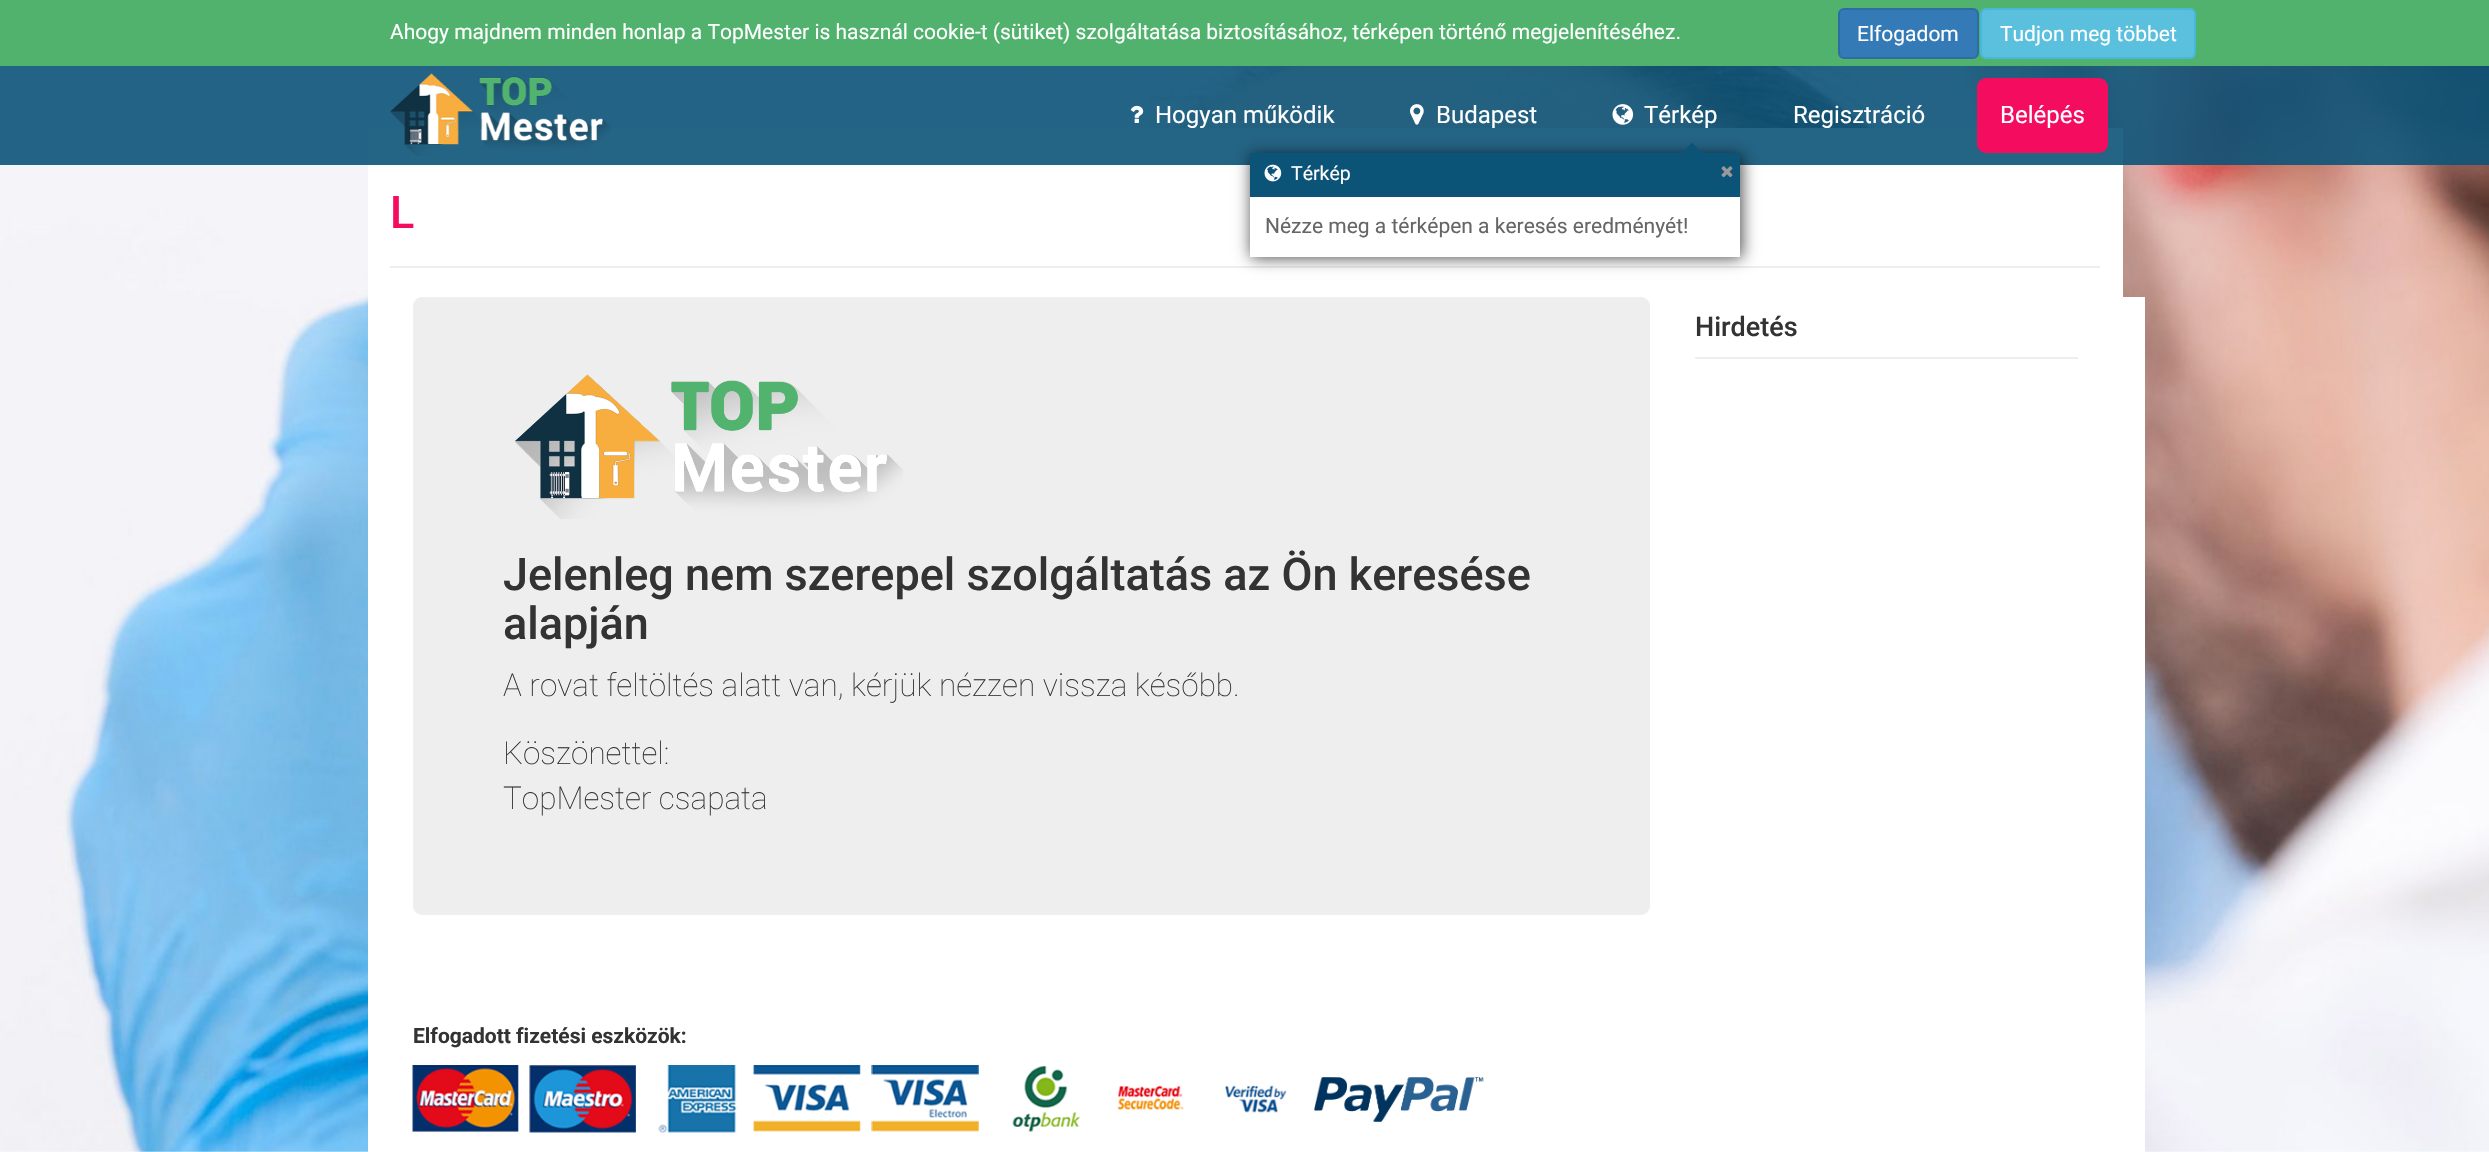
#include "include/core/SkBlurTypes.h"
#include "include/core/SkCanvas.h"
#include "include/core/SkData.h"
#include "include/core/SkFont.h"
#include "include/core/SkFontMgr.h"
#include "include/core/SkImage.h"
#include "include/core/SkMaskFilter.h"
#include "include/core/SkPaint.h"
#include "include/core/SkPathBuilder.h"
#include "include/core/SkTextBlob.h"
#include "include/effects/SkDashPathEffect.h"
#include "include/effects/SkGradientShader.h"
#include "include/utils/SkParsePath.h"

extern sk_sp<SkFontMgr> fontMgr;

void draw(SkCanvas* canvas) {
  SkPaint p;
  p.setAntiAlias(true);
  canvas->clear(SK_ColorWHITE);
  canvas->drawImageRect(SkImages::DeferredFromEncodedData(SkData::MakeFromFileName("images/1.png")), SkRect::MakeLTRB(0, 66, 2489, 1152), SkSamplingOptions());
  p.setColor(SK_ColorWHITE);
  canvas->drawRect(SkRect::MakeLTRB(368, 128, 2123, 1152), p);
  p.setColor(SkColorSetARGB(230, 12, 83, 120));
  canvas->drawRect(SkRect::MakeLTRB(0, 66, 2489, 165), p);
  p.setColor(SkColorSetRGB(81, 178, 109));
  canvas->drawRect(SkRect::MakeLTRB(0, 0, 2489, 66), p);
  p.setColor(SkColorSetRGB(51, 122, 183));
  canvas->drawRoundRect(SkRect::MakeLTRB(1839, 9, 1978, 58), 5, 5, p);
  p.setStyle(SkPaint::kStroke_Style);
  p.setStrokeWidth(2);
  p.setColor(SkColorSetRGB(46, 109, 164));
  canvas->drawRoundRect(SkRect::MakeLTRB(1839, 9, 1978, 58), 5, 5, p);
  p.setStyle(SkPaint::kFill_Style);
  p.setColor(SkColorSetRGB(91, 192, 222));
  canvas->drawRoundRect(SkRect::MakeLTRB(1981, 9, 2195, 58), 5, 5, p);
  p.setStyle(SkPaint::kStroke_Style);
  p.setColor(SkColorSetRGB(70, 184, 218));
  canvas->drawRoundRect(SkRect::MakeLTRB(1981, 9, 2195, 58), 5, 5, p);
  canvas->drawImageRect(SkImages::DeferredFromEncodedData(SkData::MakeFromFileName("images/2.png")), SkRect::MakeLTRB(390, 73, 611, 156), SkSamplingOptions());
  canvas->drawImageRect(SkImages::DeferredFromEncodedData(SkData::MakeFromFileName("images/3.png")), SkRect::MakeLTRB(1130, 105, 1144, 123), SkSamplingOptions());
  canvas->drawImageRect(SkImages::DeferredFromEncodedData(SkData::MakeFromFileName("images/4.png")), SkRect::MakeLTRB(1612, 104, 1634, 125), SkSamplingOptions());
  p.setStyle(SkPaint::kFill_Style);
  p.setColor(SkColorSetRGB(238, 238, 238));
  canvas->drawRect(SkRect::MakeLTRB(390, 266, 2100, 268), p);
  p.setColor(SkColorSetARGB(179, 0, 0, 0));
  p.setMaskFilter(SkMaskFilter::MakeBlur(kNormal_SkBlurStyle, 7.5f));
  canvas->drawRect(SkRect::MakeLTRB(1251, 155, 1742, 258), p);
  p.setMaskFilter(nullptr);
  p.setColor(SK_ColorWHITE);
  canvas->drawRect(SkRect::MakeLTRB(1250, 197, 1740, 257), p);
  p.setColor(SkColorSetRGB(12, 83, 120));
  canvas->drawPath(SkPathBuilder().moveTo(1702.5f, 153).lineTo(1681.5f, 153).lineTo(1692, 142.5f).close().detach(), p);
  canvas->drawRect(SkRect::MakeLTRB(1250, 153, 1740, 197), p);
  canvas->drawImageRect(SkImages::DeferredFromEncodedData(SkData::MakeFromFileName("images/5.png")), SkRect::MakeLTRB(1264, 164, 1282, 182), SkSamplingOptions());
  canvas->drawImageRect(SkImages::DeferredFromEncodedData(SkData::MakeFromFileName("images/6.png")), SkRect::MakeLTRB(1721, 166, 1733, 178), SkSamplingOptions());
  canvas->drawImageRect(SkImages::DeferredFromEncodedData(SkData::MakeFromFileName("images/7.png")), SkRect::MakeLTRB(1410, 104, 1424, 125), SkSamplingOptions());
  p.setColor(SkColorSetRGB(244, 13, 94));
  canvas->drawRoundRect(SkRect::MakeLTRB(1977, 78, 2108, 153), 9, 9, p);
  p.setColor(SkColorSetRGB(238, 238, 238));
  canvas->drawRect(SkRect::MakeLTRB(1695, 357, 2078, 359), p);
  canvas->drawRoundRect(SkRect::MakeLTRB(413, 297, 1650, 915), 9, 9, p);
  canvas->drawImageRect(SkImages::DeferredFromEncodedData(SkData::MakeFromFileName("images/8.png")), SkRect::MakeLTRB(515, 374, 903, 519), SkSamplingOptions());
  p.setColor(SK_ColorWHITE);
  canvas->drawRect(SkRect::MakeLTRB(2123, 297, 2145, 1152), p);
  canvas->drawImageRect(SkImages::DeferredFromEncodedData(SkData::MakeFromFileName("images/9.png")), SkRect::MakeLTRB(412, 1065, 1287, 1133), SkSamplingOptions());
  canvas->drawImageRect(SkImages::DeferredFromEncodedData(SkData::MakeFromFileName("images/10.png")), SkRect::MakeLTRB(1314, 1077, 1484, 1122), SkSamplingOptions());
  SkFont font1(fontMgr->matchFamilyStyle("Roboto", SkFontStyle::Normal()), 21);
  font1.setSubpixel(true);
  canvas->drawString("Ahogy majdnem minden honlap a TopMester is használ cookie-t (sütiket) szolgáltatása biztosításához, térképen történő megjelenítéséhez.", 390, 39, font1, p);
  canvas->drawString("Elfogadom", 1857, 41, font1, p);
  canvas->drawString("Tudjon meg többet", 2000, 41, font1, p);
  SkFont font2(fontMgr->matchFamilyStyle("Roboto", SkFontStyle::Normal()), 24);
  font2.setSubpixel(true);
  canvas->drawString("Hogyan működik", 1155, 123, font2, p);
  canvas->drawString("Térkép", 1644, 123, font2, p);
  SkFont font3(fontMgr->matchFamilyStyle("Roboto", SkFontStyle::Normal()), 19.5f);
  font3.setSubpixel(true);
  canvas->drawString("Térkép", 1291, 180, font3, p);
  p.setColor(SkColorSetRGB(102, 102, 102));
  canvas->drawString("Nézze meg a térképen a keresés eredményét!", 1265, 233, font1, p);
  p.setColor(SK_ColorWHITE);
  canvas->drawString("Budapest", 1436, 123, font2, p);
  canvas->drawString("Regisztráció", 1793, 123, font2, p);
  canvas->drawString("Belépés", 2000, 123, font2, p);
  SkFont font4(fontMgr->matchFamilyStyle("Roboto", SkFontStyle(500, SkFontStyle::kNormal_Width, SkFontStyle::kUpright_Slant)), 45);
  font4.setSubpixel(true);
  p.setColor(SkColorSetRGB(244, 13, 94));
  canvas->drawString("L", 390, 228, font4, p);
  SkFont font5(fontMgr->matchFamilyStyle("Roboto", SkFontStyle(500, SkFontStyle::kNormal_Width, SkFontStyle::kUpright_Slant)), 27);
  font5.setSubpixel(true);
  p.setColor(SkColorSetRGB(51, 51, 51));
  canvas->drawString("Hirdetés", 1695, 336, font5, p);
  canvas->drawString("Jelenleg nem szerepel szolgáltatás az Ön keresése", 503, 590, font4, p);
  canvas->drawString("alapján", 503, 639, font4, p);
  SkFont font6(fontMgr->matchFamilyStyle("Roboto", SkFontStyle(100, SkFontStyle::kNormal_Width, SkFontStyle::kUpright_Slant)), 31.5f);
  font6.setSubpixel(true);
  canvas->drawString("A rovat feltöltés alatt van, kérjük nézzen vissza később.", 503, 696, font6, p);
  canvas->drawString("Köszönettel:", 503, 764, font6, p);
  canvas->drawString("TopMester csapata", 503, 809, font6, p);
  SkFont font7(fontMgr->matchFamilyStyle("Roboto", SkFontStyle::Bold()), 21);
  font7.setSubpixel(true);
  canvas->drawString("Elfogadott fizetési eszközök:", 413, 1043, font7, p);
}
